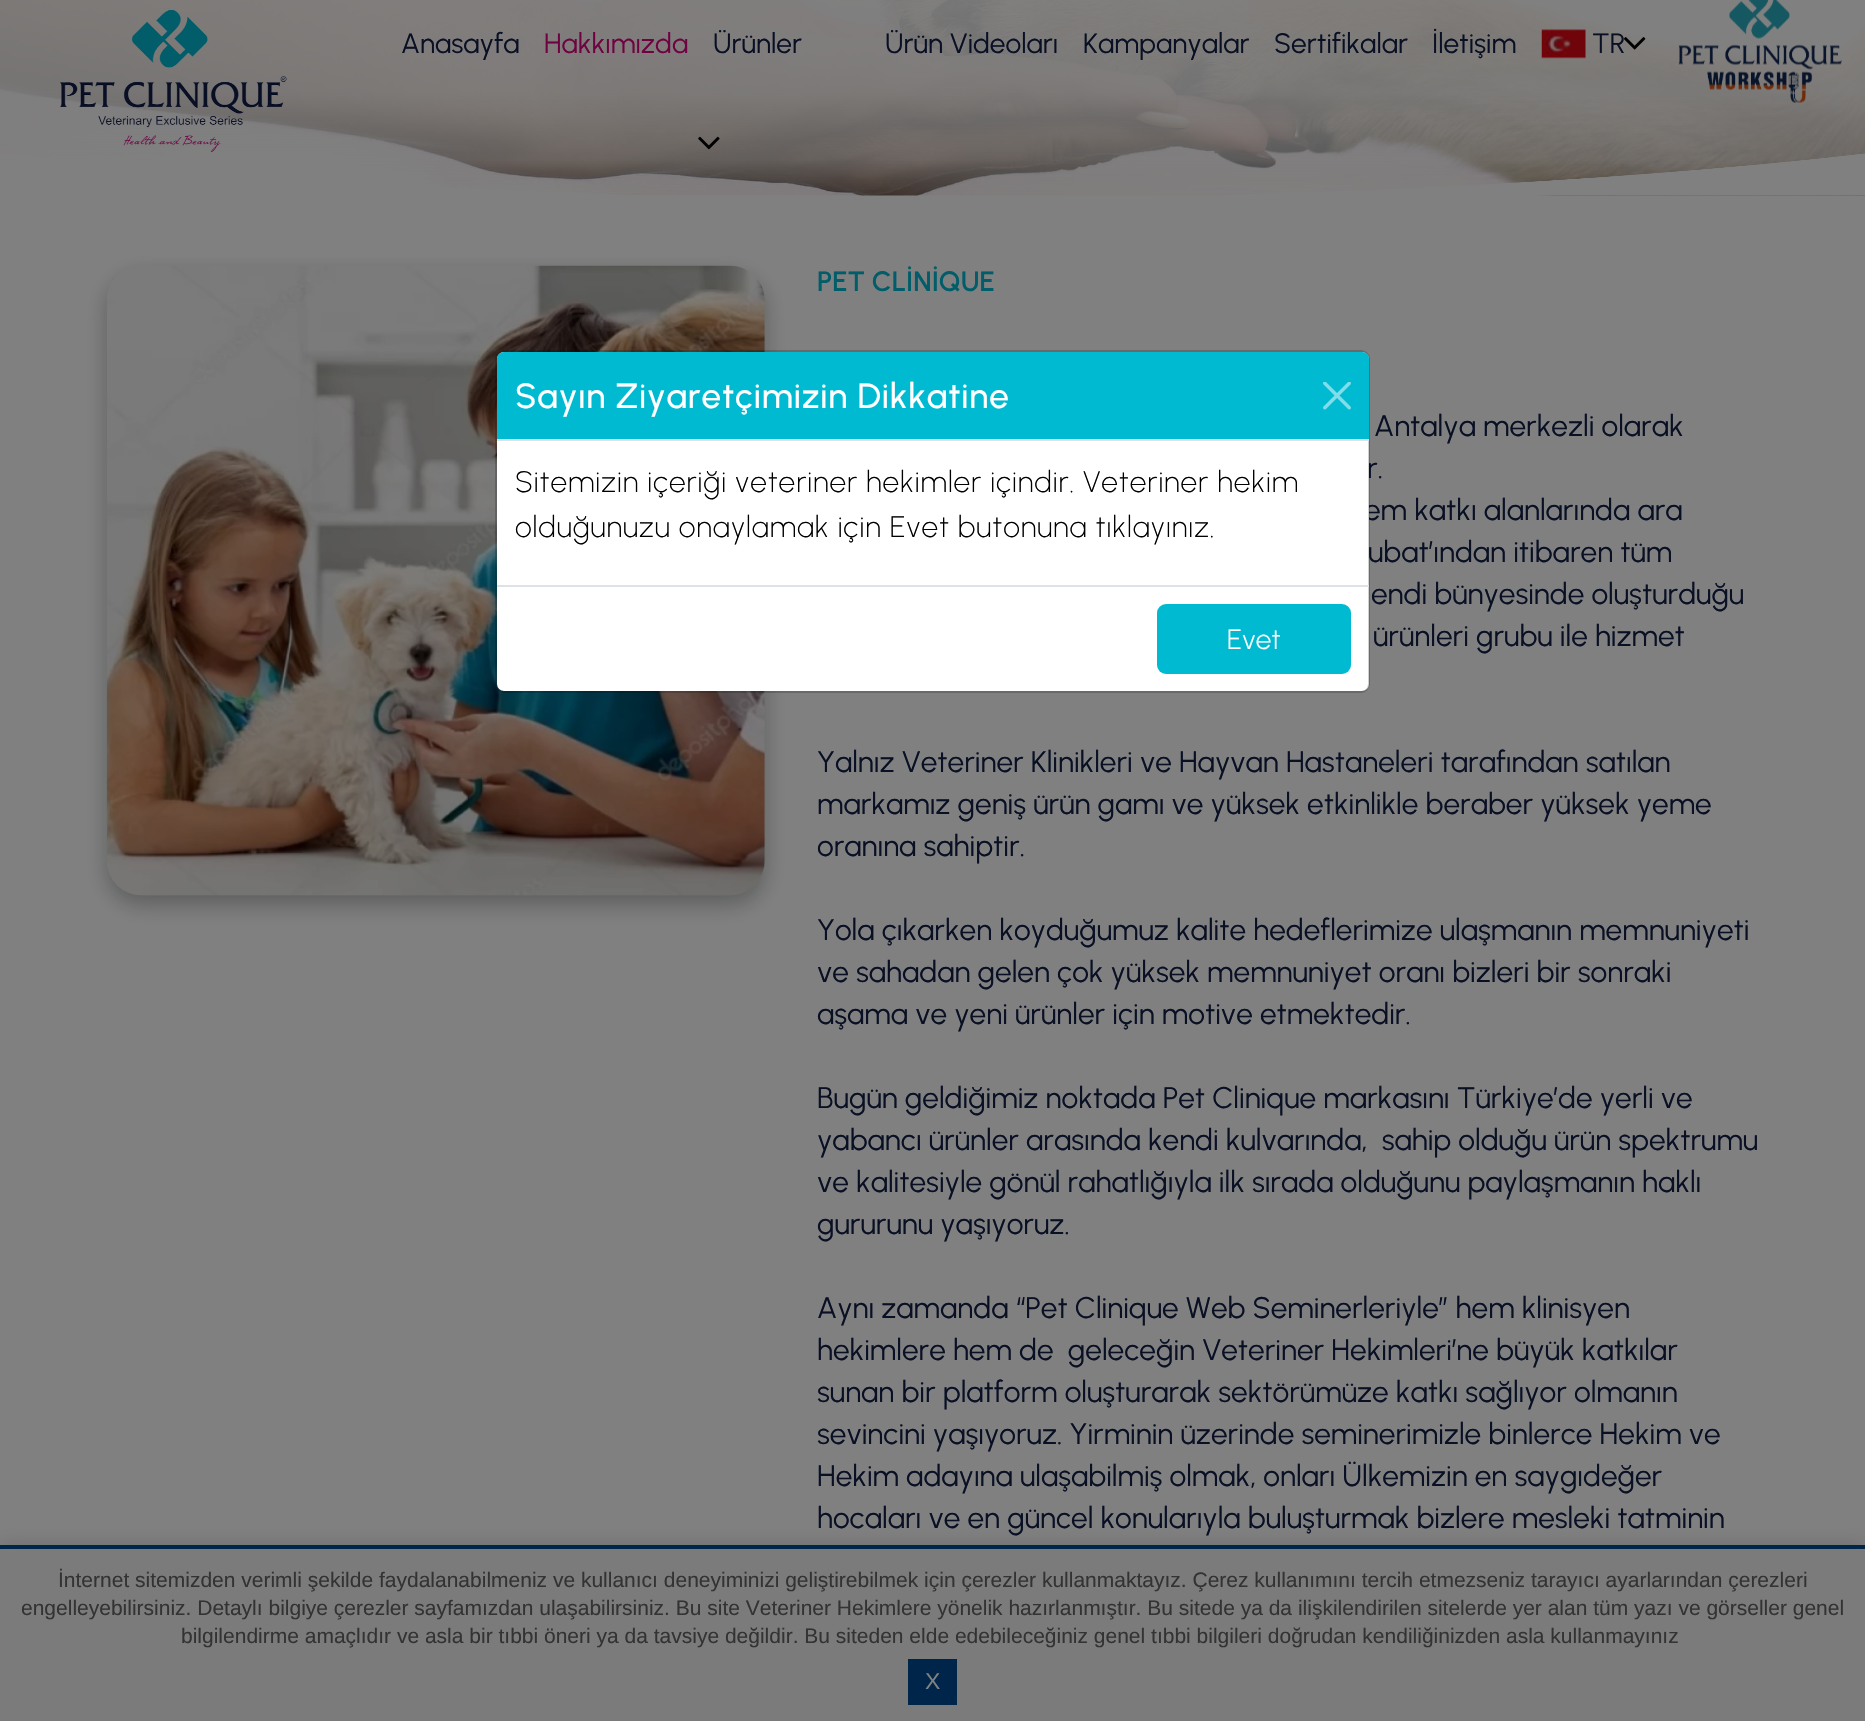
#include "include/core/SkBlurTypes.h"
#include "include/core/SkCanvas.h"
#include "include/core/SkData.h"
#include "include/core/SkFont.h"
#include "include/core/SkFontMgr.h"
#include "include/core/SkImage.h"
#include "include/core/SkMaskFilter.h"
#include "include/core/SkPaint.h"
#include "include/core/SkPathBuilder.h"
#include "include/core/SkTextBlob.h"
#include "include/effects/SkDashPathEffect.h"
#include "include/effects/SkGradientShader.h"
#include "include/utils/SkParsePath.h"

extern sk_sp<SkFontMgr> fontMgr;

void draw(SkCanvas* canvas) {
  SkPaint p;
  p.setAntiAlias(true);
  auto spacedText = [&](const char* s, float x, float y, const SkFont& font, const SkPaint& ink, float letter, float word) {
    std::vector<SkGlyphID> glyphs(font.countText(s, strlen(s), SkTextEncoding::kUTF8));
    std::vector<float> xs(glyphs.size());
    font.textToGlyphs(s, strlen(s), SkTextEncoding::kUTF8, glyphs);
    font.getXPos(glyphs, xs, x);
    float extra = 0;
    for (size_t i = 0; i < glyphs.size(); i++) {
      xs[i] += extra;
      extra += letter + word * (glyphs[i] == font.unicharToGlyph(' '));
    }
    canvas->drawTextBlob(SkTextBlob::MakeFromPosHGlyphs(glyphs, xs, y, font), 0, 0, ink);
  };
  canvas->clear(SkColorSetRGB(128, 128, 128));
  canvas->drawImageRect(SkImages::DeferredFromEncodedData(SkData::MakeFromFileName("images/6.png")), SkRect::MakeLTRB(0, 0, 1865, 196), SkSamplingOptions());
  canvas->drawImageRect(SkImages::DeferredFromEncodedData(SkData::MakeFromFileName("images/7.png")), SkRect::MakeLTRB(0, 153, 1865, 196), SkSamplingOptions());
  {
    const SkColor colors[] = {SkColorSetARGB(230, 128, 128, 128), SkColorSetARGB(179, 128, 128, 128), SkColorSetARGB(0, 128, 128, 128)};
    const float stops[] = {0.4f, 0.7f, 1};
    const SkPoint ends[] = {{933, 0}, {933, 228}};
    p.setShader(SkGradientShader::MakeLinear(ends, colors, stops, 3, SkTileMode::kClamp));
    p.setAlpha(255);
  }
  canvas->drawRect(SkRect::MakeLTRB(0, 0, 1865, 196), p);
  canvas->drawImageRect(SkImages::DeferredFromEncodedData(SkData::MakeFromFileName("images/1.png")), SkRect::MakeLTRB(60, 10, 287, 152), SkSamplingOptions());
  canvas->drawImageRect(SkImages::DeferredFromEncodedData(SkData::MakeFromFileName("images/2.png")), SkRect::MakeLTRB(698, 136, 720, 150), SkSamplingOptions());
  canvas->drawImageRect(SkImages::DeferredFromEncodedData(SkData::MakeFromFileName("images/3.png")), SkRect::MakeLTRB(1541, 29, 1586, 59), SkSamplingOptions());
  canvas->drawImageRect(SkImages::DeferredFromEncodedData(SkData::MakeFromFileName("images/4.png")), SkRect::MakeLTRB(1624, 37, 1646, 50), SkSamplingOptions());
  canvas->drawImageRect(SkImages::DeferredFromEncodedData(SkData::MakeFromFileName("images/5.png")), SkRect::MakeLTRB(1678, 0, 1842, 103), SkSamplingOptions());
  p.setShader(nullptr);
  p.setColor(SkColorSetARGB(77, 14, 15, 15));
  p.setMaskFilter(SkMaskFilter::MakeBlur(kNormal_SkBlurStyle, 10.5f));
  canvas->drawRoundRect(SkRect::MakeLTRB(107, 275, 765, 905), 35, 35, p);
  p.setMaskFilter(nullptr);
  canvas->drawImageRect(SkImages::DeferredFromEncodedData(SkData::MakeFromFileName("images/8.png")), SkRect::MakeLTRB(106, 265, 765, 896), SkSamplingOptions());
  p.setColor(SkColorSetRGB(109, 109, 109));
  p.setMaskFilter(SkMaskFilter::MakeBlur(kNormal_SkBlurStyle, 9));
  canvas->drawRect(SkRect::MakeLTRB(0, 1545, 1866, 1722), p);
  p.setMaskFilter(nullptr);
  p.setColor(SkColorSetRGB(123, 123, 123));
  canvas->drawRect(SkRect::MakeLTRB(0, 1549, 1865, 1721), p);
  p.setColor(SkColorSetRGB(0, 37, 74));
  canvas->drawRect(SkRect::MakeLTRB(0, 1545, 1865, 1549), p);
  canvas->drawRect(SkRect::MakeLTRB(908, 1659, 957, 1705), p);
  SkFont font1(fontMgr->matchFamilyStyle("Urbanist", SkFontStyle::Normal()), 28);
  font1.setSubpixel(true);
  p.setColor(SkColorSetRGB(9, 16, 36));
  canvas->drawString("Anasayfa", 401, 53, font1, p);
  p.setColor(SkColorSetRGB(111, 3, 66));
  canvas->drawString("Hakkımızda", 544, 53, font1, p);
  p.setColor(SkColorSetRGB(9, 16, 36));
  canvas->drawString("Ürünler", 713, 53, font1, p);
  canvas->drawString("Ürün Videoları", 885, 53, font1, p);
  canvas->drawString("Kampanyalar", 1083, 53, font1, p);
  canvas->drawString("Sertifikalar", 1274, 53, font1, p);
  canvas->drawString("İletişim", 1432, 53, font1, p);
  canvas->drawString("TR", 1592, 53, font1, p);
  SkFont font2(fontMgr->matchFamilyStyle("Urbanist", SkFontStyle(600, SkFontStyle::kNormal_Width, SkFontStyle::kUpright_Slant)), 28);
  font2.setSubpixel(true);
  p.setColor(SkColorSetRGB(0, 93, 105));
  canvas->drawString("PET CLİNİQUE", 817, 291, font2, p);
  SkFont font3(fontMgr->matchFamilyStyle("Urbanist", SkFontStyle::Normal()), 29.75f);
  font3.setSubpixel(true);
  p.setColor(SkColorSetRGB(9, 16, 36));
  canvas->drawString("Antalya merkezli olarak", 1374, 436, font3, p);
  canvas->drawString("r.", 1367, 478, font3, p);
  canvas->drawString("em katkı alanlarında ara", 1364, 520, font3, p);
  canvas->drawString("ubat’ından itibaren tüm", 1368, 562, font3, p);
  canvas->drawString("endi bünyesinde oluşturduğu", 1371, 604, font3, p);
  canvas->drawString("ürünleri grubu ile hizmet", 1373, 646, font3, p);
  canvas->drawString("Yalnız Veteriner Klinikleri ve Hayvan Hastaneleri tarafından satılan", 817, 772, font3, p);
  canvas->drawString("markamız geniş ürün gamı ve yüksek etkinlikle beraber yüksek yeme", 817, 814, font3, p);
  canvas->drawString("oranına sahiptir.", 817, 856, font3, p);
  canvas->drawString("Yola çıkarken koyduğumuz kalite hedeflerimize ulaşmanın memnuniyeti", 817, 940, font3, p);
  canvas->drawString("ve sahadan gelen çok yüksek memnuniyet oranı bizleri bir sonraki", 817, 982, font3, p);
  canvas->drawString("aşama ve yeni ürünler için motive etmektedir.", 817, 1024, font3, p);
  canvas->drawString("Bugün geldiğimiz noktada Pet Clinique markasını Türkiye’de yerli ve", 817, 1108, font3, p);
  canvas->drawString("yabancı ürünler arasında kendi kulvarında,  sahip olduğu ürün spektrumu", 817, 1150, font3, p);
  canvas->drawString("ve kalitesiyle gönül rahatlığıyla ilk sırada olduğunu paylaşmanın haklı", 817, 1192, font3, p);
  canvas->drawString("gururunu yaşıyoruz.", 817, 1234, font3, p);
  canvas->drawString("Aynı zamanda “Pet Clinique Web Seminerleriyle” hem klinisyen", 817, 1318, font3, p);
  canvas->drawString("hekimlere hem de  geleceğin Veteriner Hekimleri’ne büyük katkılar", 817, 1360, font3, p);
  canvas->drawString("sunan bir platform oluşturarak sektörümüze katkı sağlıyor olmanın", 817, 1402, font3, p);
  canvas->drawString("sevincini yaşıyoruz. Yirminin üzerinde seminerimizle binlerce Hekim ve", 817, 1444, font3, p);
  canvas->drawString("Hekim adayına ulaşabilmiş olmak, onları Ülkemizin en saygıdeğer", 817, 1486, font3, p);
  canvas->drawString("hocaları ve en güncel konularıyla buluşturmak bizlere mesleki tatminin", 817, 1528, font3, p);
  p.setColor(SK_ColorWHITE);
  canvas->drawRoundRect(SkRect::MakeLTRB(497, 352, 1369, 691), 7, 7, p);
  p.setStyle(SkPaint::kStroke_Style);
  p.setStrokeWidth(2);
  p.setColor(SkColorSetARGB(46, 0, 0, 0));
  canvas->drawRoundRect(SkRect::MakeLTRB(496, 351, 1369, 692), 8, 8, p);
  p.setStyle(SkPaint::kFill_Style);
  p.setColor(SkColorSetRGB(0, 186, 210));
  canvas->drawPath(SkPathBuilder().moveTo(504, 352).lineTo(1362, 352).cubicTo(1366, 352, 1369, 355, 1369, 359).lineTo(1369, 441).lineTo(497, 441).lineTo(497, 359).cubicTo(497, 355, 500, 352, 504, 352).close().detach(), p);
  p.setColor(SkColorSetRGB(222, 226, 230));
  canvas->drawRect(SkRect::MakeLTRB(497, 439, 1369, 441), p);
  SkFont font4(fontMgr->matchFamilyStyle("Urbanist", SkFontStyle(500, SkFontStyle::kNormal_Width, SkFontStyle::kUpright_Slant)), 35);
  font4.setSubpixel(true);
  p.setColor(SK_ColorWHITE);
  spacedText("Sayın Ziyaretçimizin Dikkatine", 515, 408, font4, p, 0.88f, 0);
  canvas->drawImageRect(SkImages::DeferredFromEncodedData(SkData::MakeFromFileName("images/9.png")), SkRect::MakeLTRB(1323, 382, 1351, 410), SkSamplingOptions());
  SkFont font5(fontMgr->matchFamilyStyle("Urbanist", SkFontStyle(200, SkFontStyle::kNormal_Width, SkFontStyle::kUpright_Slant)), 29.75f);
  font5.setSubpixel(true);
  p.setColor(SK_ColorBLACK);
  spacedText("Sitemizin içeriği veteriner hekimler içindir. Veteriner hekim", 515, 492, font5, p, 0.88f, 0);
  spacedText("olduğunuzu onaylamak için Evet butonuna tıklayınız.", 515, 537, font5, p, 0.88f, 0);
  p.setColor(SkColorSetRGB(222, 226, 230));
  canvas->drawRect(SkRect::MakeLTRB(497, 585, 1369, 587), p);
  p.setColor(SkColorSetRGB(0, 186, 210));
  canvas->drawRoundRect(SkRect::MakeLTRB(1157, 604, 1351, 674), 9, 9, p);
  SkFont font6(fontMgr->matchFamilyStyle("Urbanist", SkFontStyle(300, SkFontStyle::kNormal_Width, SkFontStyle::kUpright_Slant)), 28);
  font6.setSubpixel(true);
  p.setColor(SK_ColorWHITE);
  canvas->drawString("Evet", 1227, 649, font6, p);
  SkFont font7(fontMgr->matchFamilyStyle("Liberation Sans", SkFontStyle::Normal()), 21);
  font7.setSubpixel(true);
  p.setColor(SkColorSetRGB(51, 51, 51));
  canvas->drawString("İnternet sitemizden verimli şekilde faydalanabilmeniz ve kullanıcı deneyiminizi geliştirebilmek için çerezler kullanmaktayız. Çerez kullanımını tercih etmezseniz tarayıcı ayarlarından çerezleri", 58, 1587, font7, p);
  canvas->drawString("engelleyebilirsiniz. Detaylı bilgiye çerezler sayfamızdan ulaşabilirsiniz. Bu site Veteriner Hekimlere yönelik hazırlanmıştır. Bu sitede ya da ilişkilendirilen sitelerde yer alan tüm yazı ve görseller genel", 21, 1615, font7, p);
  canvas->drawString("bilgilendirme amaçlıdır ve asla bir tıbbi öneri ya da tavsiye değildir. Bu siteden elde edebileceğiniz genel tıbbi bilgileri doğrudan kendiliğinizden asla kullanmayınız", 181, 1643, font7, p);
  SkFont font8(fontMgr->matchFamilyStyle("Liberation Sans", SkFontStyle::Normal()), 23);
  font8.setSubpixel(true);
  p.setColor(SkColorSetRGB(128, 128, 128));
  canvas->drawString("X", 925, 1689, font8, p);
}
